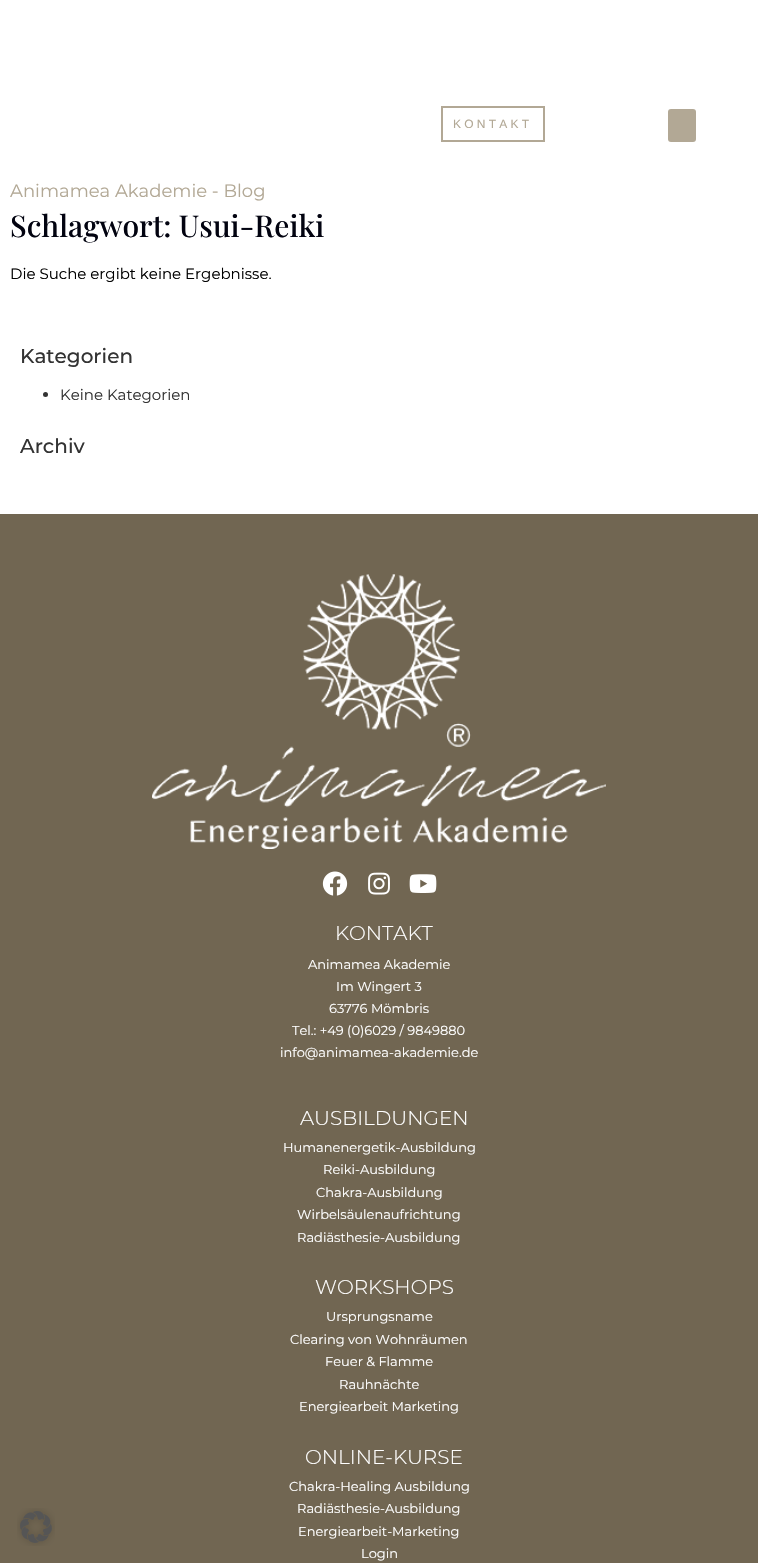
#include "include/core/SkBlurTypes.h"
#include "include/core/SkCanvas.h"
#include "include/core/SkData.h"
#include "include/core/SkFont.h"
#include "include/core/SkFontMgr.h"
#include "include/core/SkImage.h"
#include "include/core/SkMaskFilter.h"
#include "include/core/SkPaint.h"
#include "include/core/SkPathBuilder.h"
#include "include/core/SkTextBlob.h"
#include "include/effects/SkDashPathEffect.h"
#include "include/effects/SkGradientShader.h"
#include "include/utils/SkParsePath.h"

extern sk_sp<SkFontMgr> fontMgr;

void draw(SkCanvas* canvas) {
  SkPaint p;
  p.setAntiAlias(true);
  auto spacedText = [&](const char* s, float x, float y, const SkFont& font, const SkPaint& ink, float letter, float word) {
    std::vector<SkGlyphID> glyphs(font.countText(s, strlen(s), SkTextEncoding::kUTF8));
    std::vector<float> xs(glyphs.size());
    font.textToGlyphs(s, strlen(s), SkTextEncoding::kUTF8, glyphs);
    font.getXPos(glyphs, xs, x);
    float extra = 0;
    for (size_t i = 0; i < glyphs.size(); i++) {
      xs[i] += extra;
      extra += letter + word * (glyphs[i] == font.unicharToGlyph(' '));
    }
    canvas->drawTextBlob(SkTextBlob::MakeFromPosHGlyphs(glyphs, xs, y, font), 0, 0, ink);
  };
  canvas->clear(SK_ColorWHITE);
  p.setStyle(SkPaint::kStroke_Style);
  p.setStrokeWidth(2);
  p.setColor(SkColorSetRGB(178, 168, 149));
  canvas->drawRect(SkRect::MakeLTRB(442, 107, 544, 141), p);
  p.setStyle(SkPaint::kFill_Style);
  canvas->drawRoundRect(SkRect::MakeLTRB(668, 109, 696, 142), 3, 3, p);
  p.setColor(SkColorSetRGB(51, 51, 51));
  canvas->drawCircle(45.5f, 394.5f, 2.5f, p);
  p.setColor(SkColorSetRGB(113, 102, 82));
  canvas->drawRect(SkRect::MakeLTRB(0, 514, 758, 1563), p);
  canvas->drawImageRect(SkImages::DeferredFromEncodedData(SkData::MakeFromFileName("images/1.png")), SkRect::MakeLTRB(17, 1508, 55, 1546), SkSamplingOptions());
  canvas->drawImageRect(SkImages::DeferredFromEncodedData(SkData::MakeFromFileName("images/2.png")), SkRect::MakeLTRB(152, 574, 606, 849), SkSamplingOptions());
  canvas->drawImageRect(SkImages::DeferredFromEncodedData(SkData::MakeFromFileName("images/3.png")), SkRect::MakeLTRB(322, 871, 348, 896), SkSamplingOptions());
  canvas->drawImageRect(SkImages::DeferredFromEncodedData(SkData::MakeFromFileName("images/4.png")), SkRect::MakeLTRB(368, 872, 390, 895), SkSamplingOptions());
  canvas->drawImageRect(SkImages::DeferredFromEncodedData(SkData::MakeFromFileName("images/5.png")), SkRect::MakeLTRB(409, 874, 437, 893), SkSamplingOptions());
  SkFont font1(fontMgr->matchFamilyStyle("Liberation Sans", SkFontStyle::Normal()), 12);
  font1.setSubpixel(true);
  p.setColor(SkColorSetRGB(178, 168, 149));
  spacedText("KONTAKT", 453, 128, font1, p, 3.25f, 0);
  SkFont font2(fontMgr->matchFamilyStyle("Montserrat", SkFontStyle::Normal()), 18);
  font2.setSubpixel(true);
  canvas->drawString("Animamea Akademie - Blog", 10, 197, font2, p);
  SkFont font3(fontMgr->matchFamilyStyle("Playfair Display", SkFontStyle(500, SkFontStyle::kNormal_Width, SkFontStyle::kUpright_Slant)), 30);
  font3.setSubpixel(true);
  p.setColor(SkColorSetRGB(2, 3, 16));
  canvas->drawString("Schlagwort: Usui-Reiki", 10, 237, font3, p);
  SkFont font4(fontMgr->matchFamilyStyle("Montserrat", SkFontStyle::Normal()), 15);
  font4.setSubpixel(true);
  p.setColor(SK_ColorBLACK);
  canvas->drawString("Die Suche ergibt keine Ergebnisse.", 10, 279, font4, p);
  SkFont font5(fontMgr->matchFamilyStyle("Montserrat", SkFontStyle(500, SkFontStyle::kNormal_Width, SkFontStyle::kUpright_Slant)), 20);
  font5.setSubpixel(true);
  p.setColor(SkColorSetRGB(51, 51, 51));
  canvas->drawString("Kategorien", 20, 363, font5, p);
  canvas->drawString("Keine Kategorien", 60, 400, font4, p);
  canvas->drawString("Archiv", 20, 453, font5, p);
  SkFont font6(fontMgr->matchFamilyStyle("Montserrat", SkFontStyle(300, SkFontStyle::kNormal_Width, SkFontStyle::kUpright_Slant)), 20);
  font6.setSubpixel(true);
  p.setColor(SK_ColorWHITE);
  canvas->drawString("KONTAKT", 335, 940, font6, p);
  SkFont font7(fontMgr->matchFamilyStyle("Montserrat", SkFontStyle::Normal()), 13);
  font7.setSubpixel(true);
  canvas->drawString("Animamea Akademie", 308, 969, font7, p);
  canvas->drawString("Im Wingert 3", 336, 991, font7, p);
  canvas->drawString("63776 Mömbris", 329, 1013, font7, p);
  canvas->drawString("Tel.: +49 (0)6029 / 9849880", 292, 1035, font7, p);
  canvas->drawString("info@animamea-akademie.de", 280, 1057, font7, p);
  canvas->drawString("AUSBILDUNGEN", 300, 1125, font6, p);
  canvas->drawString("Humanenergetik-Ausbildung", 283, 1152, font7, p);
  canvas->drawString("Reiki-Ausbildung", 323, 1174, font7, p);
  canvas->drawString("Chakra-Ausbildung", 316, 1197, font7, p);
  canvas->drawString("Wirbelsäulenaufrichtung", 297, 1219, font7, p);
  canvas->drawString("Radiästhesie-Ausbildung", 297, 1242, font7, p);
  canvas->drawString("WORKSHOPS", 315, 1294, font6, p);
  canvas->drawString("Ursprungsname", 326, 1321, font7, p);
  canvas->drawString("Clearing von Wohnräumen", 290, 1344, font7, p);
  canvas->drawString("Feuer & Flamme", 325, 1366, font7, p);
  canvas->drawString("Rauhnächte", 339, 1389, font7, p);
  canvas->drawString("Energiearbeit Marketing", 299, 1411, font7, p);
  canvas->drawString("ONLINE-KURSE", 305, 1464, font6, p);
  canvas->drawString("Chakra-Healing Ausbildung", 289, 1491, font7, p);
  canvas->drawString("Radiästhesie-Ausbildung", 297, 1513, font7, p);
  canvas->drawString("Energiearbeit-Marketing", 298, 1536, font7, p);
  canvas->drawString("Login", 361, 1558, font7, p);
}
